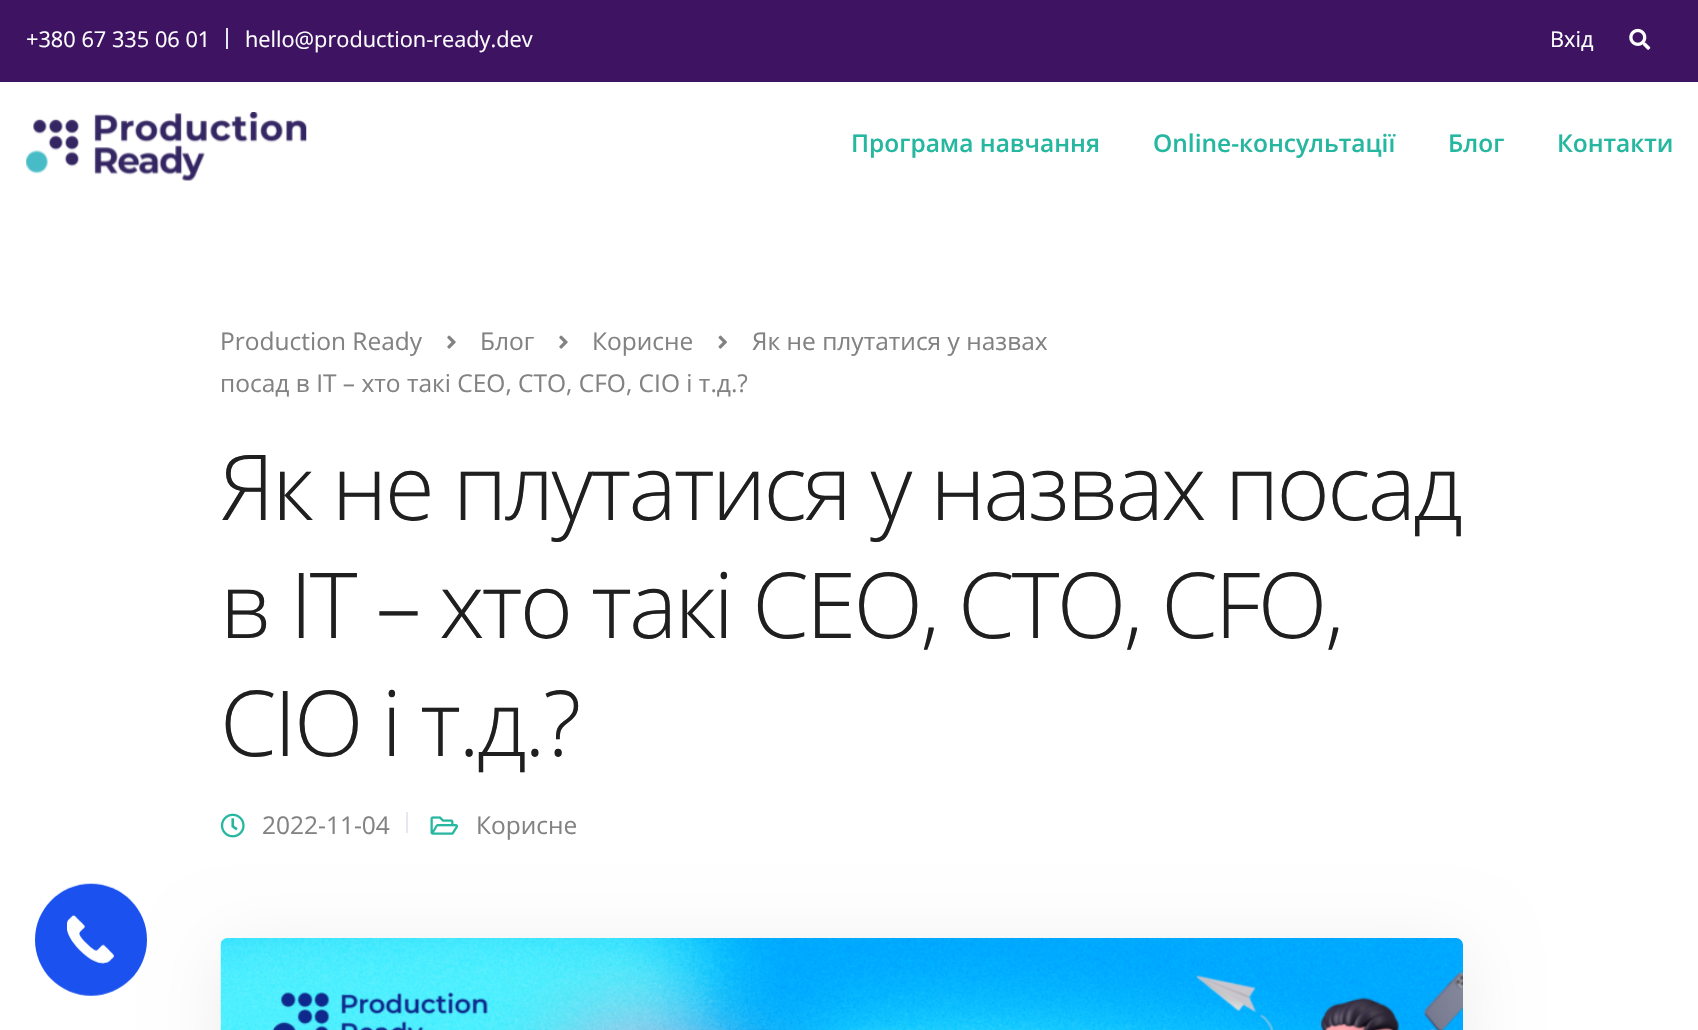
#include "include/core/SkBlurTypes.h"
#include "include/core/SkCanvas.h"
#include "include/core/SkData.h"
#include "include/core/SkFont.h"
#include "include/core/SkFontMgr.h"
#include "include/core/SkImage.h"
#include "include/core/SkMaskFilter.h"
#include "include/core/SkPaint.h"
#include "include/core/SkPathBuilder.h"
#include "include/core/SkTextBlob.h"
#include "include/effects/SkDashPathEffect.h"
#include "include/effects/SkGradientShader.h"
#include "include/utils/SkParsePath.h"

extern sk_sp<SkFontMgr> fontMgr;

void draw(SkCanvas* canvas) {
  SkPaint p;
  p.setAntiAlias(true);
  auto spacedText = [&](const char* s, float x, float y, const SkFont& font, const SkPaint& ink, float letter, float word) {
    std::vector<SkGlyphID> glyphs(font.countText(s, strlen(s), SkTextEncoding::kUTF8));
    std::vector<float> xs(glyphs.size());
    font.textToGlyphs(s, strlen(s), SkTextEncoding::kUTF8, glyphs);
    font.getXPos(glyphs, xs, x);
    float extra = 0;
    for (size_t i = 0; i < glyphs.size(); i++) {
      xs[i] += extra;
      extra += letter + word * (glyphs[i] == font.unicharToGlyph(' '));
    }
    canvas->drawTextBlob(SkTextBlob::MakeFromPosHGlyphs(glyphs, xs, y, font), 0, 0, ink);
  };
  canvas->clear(SK_ColorWHITE);
  p.setColor(SkColorSetRGB(62, 19, 98));
  canvas->drawRect(SkRect::MakeLTRB(0, 0, 1698, 82), p);
  p.setColor(SkColorSetRGB(229, 231, 242));
  canvas->drawRect(SkRect::MakeLTRB(226, 28, 228, 49), p);
  canvas->drawImageRect(SkImages::DeferredFromEncodedData(SkData::MakeFromFileName("images/1.png")), SkRect::MakeLTRB(1629, 28, 1651, 50), SkSamplingOptions());
  canvas->drawImageRect(SkImages::DeferredFromEncodedData(SkData::MakeFromFileName("images/2.png")), SkRect::MakeLTRB(26, 112, 307, 181), SkSamplingOptions());
  canvas->drawImageRect(SkImages::DeferredFromEncodedData(SkData::MakeFromFileName("images/3.png")), SkRect::MakeLTRB(447, 335, 456, 349), SkSamplingOptions());
  canvas->drawImageRect(SkImages::DeferredFromEncodedData(SkData::MakeFromFileName("images/3.png")), SkRect::MakeLTRB(559, 335, 568, 349), SkSamplingOptions());
  canvas->drawImageRect(SkImages::DeferredFromEncodedData(SkData::MakeFromFileName("images/4.png")), SkRect::MakeLTRB(718, 335, 727, 349), SkSamplingOptions());
  canvas->drawImageRect(SkImages::DeferredFromEncodedData(SkData::MakeFromFileName("images/5.png")), SkRect::MakeLTRB(220, 813, 245, 838), SkSamplingOptions());
  canvas->drawRect(SkRect::MakeLTRB(406, 812, 408, 833), p);
  canvas->drawImageRect(SkImages::DeferredFromEncodedData(SkData::MakeFromFileName("images/6.png")), SkRect::MakeLTRB(430, 816, 459, 835), SkSamplingOptions());
  p.setColor(SkColorSetARGB(18, 0, 0, 0));
  p.setMaskFilter(SkMaskFilter::MakeBlur(kNormal_SkBlurStyle, 35));
  canvas->drawRoundRect(SkRect::MakeLTRB(221, 947, 1463, 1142), 7, 7, p);
  p.setMaskFilter(nullptr);
  canvas->drawImageRect(SkImages::DeferredFromEncodedData(SkData::MakeFromFileName("images/7.png")), SkRect::MakeLTRB(220, 938, 1463, 1030), SkSamplingOptions());
  canvas->drawImageRect(SkImages::DeferredFromEncodedData(SkData::MakeFromFileName("images/8.png")), SkRect::MakeLTRB(35, 883, 147, 996), SkSamplingOptions());
  SkFont font1(fontMgr->matchFamilyStyle("Open Sans", SkFontStyle::Normal()), 21.75f);
  font1.setSubpixel(true);
  p.setColor(SK_ColorWHITE);
  canvas->drawString("+380 67 335 06 01", 26, 47, font1, p);
  canvas->drawString("hello@production-ready.dev", 245, 47, font1, p);
  canvas->drawString("Вхід", 1550, 47, font1, p);
  SkFont font2(fontMgr->matchFamilyStyle("Open Sans", SkFontStyle(600, SkFontStyle::kNormal_Width, SkFontStyle::kUpright_Slant)), 24.5f);
  font2.setSubpixel(true);
  p.setColor(SkColorSetRGB(38, 183, 160));
  canvas->drawString("Програма навчання", 851, 152, font2, p);
  canvas->drawString("Online-консультації", 1153, 152, font2, p);
  canvas->drawString("Блог", 1448, 152, font2, p);
  canvas->drawString("Контакти", 1557, 152, font2, p);
  SkFont font3(fontMgr->matchFamilyStyle("Open Sans", SkFontStyle::Normal()), 24.5f);
  font3.setSubpixel(true);
  p.setColor(SkColorSetRGB(130, 130, 130));
  canvas->drawString("Production Ready", 220, 350, font3, p);
  canvas->drawString("Блог", 480, 350, font3, p);
  canvas->drawString("Корисне", 592, 350, font3, p);
  canvas->drawString("Як не плутатися у назвах", 752, 350, font3, p);
  canvas->drawString("посад в ІТ – хто такі CEO, CTO, CFO, CIO і т.д.?", 220, 392, font3, p);
  SkFont font4(fontMgr->matchFamilyStyle("Open Sans", SkFontStyle(300, SkFontStyle::kNormal_Width, SkFontStyle::kUpright_Slant)), 91);
  font4.setSubpixel(true);
  p.setColor(SkColorSetRGB(31, 31, 31));
  spacedText("Як не плутатися у назвах посад", 220, 520, font4, p, -2.75f, 0);
  spacedText("в ІТ – хто такі CEO, CTO, CFO,", 220, 638, font4, p, -2.75f, 0);
  spacedText("CIO і т.д.?", 220, 756, font4, p, -2.75f, 0);
  p.setColor(SkColorSetRGB(130, 130, 130));
  canvas->drawString("2022-11-04", 262, 834, font3, p);
  canvas->drawString("Корисне", 476, 834, font3, p);
}
